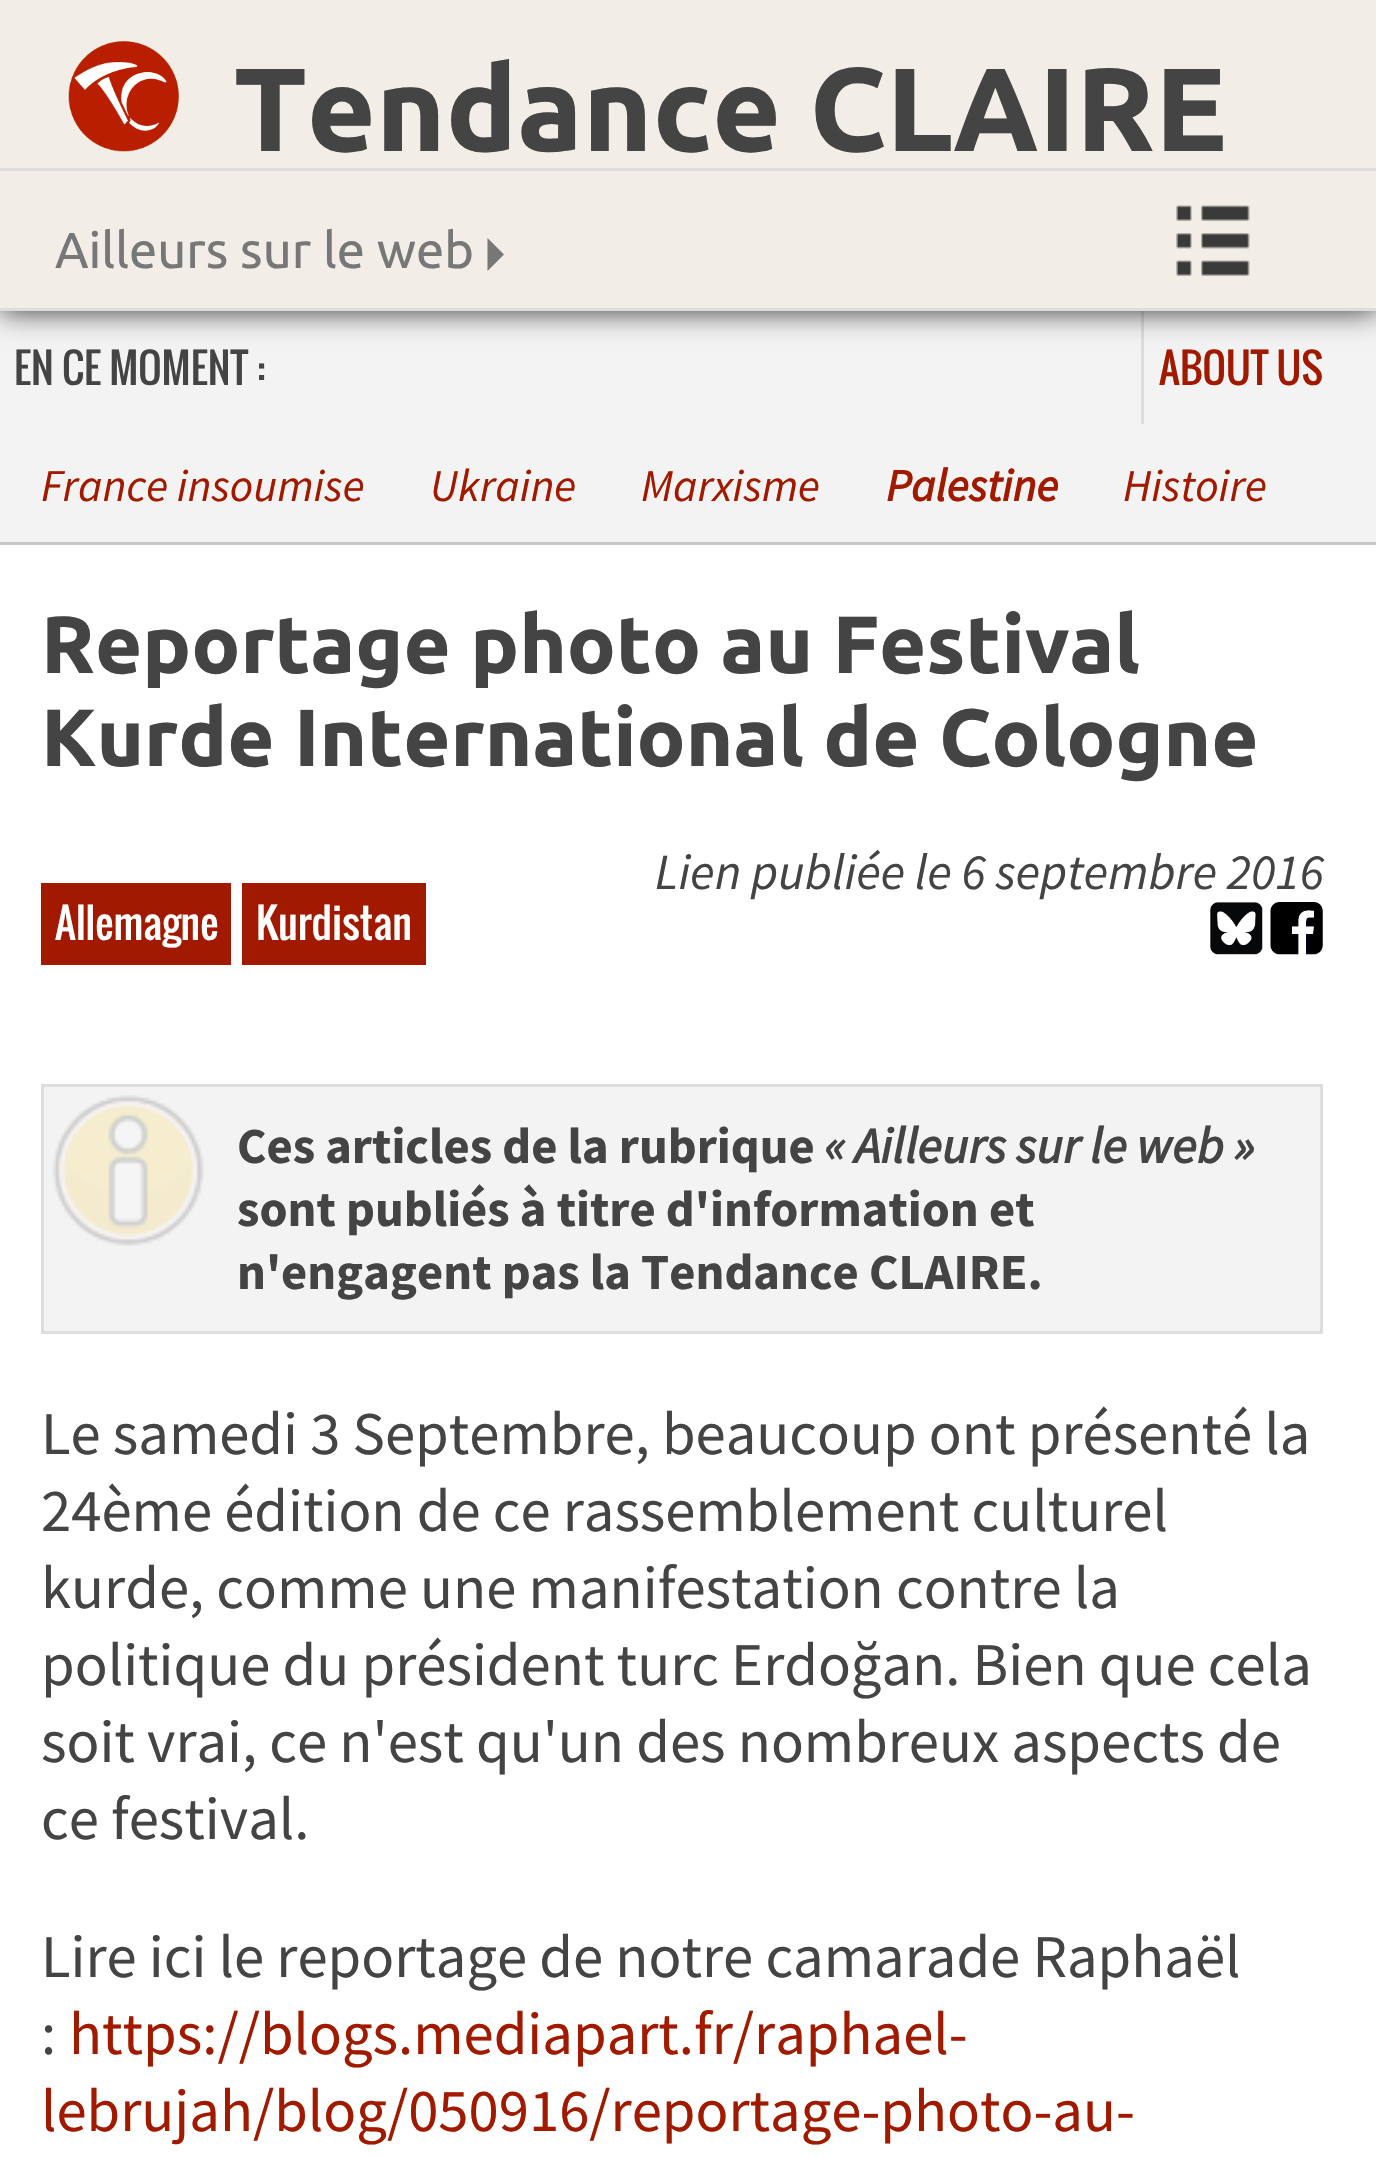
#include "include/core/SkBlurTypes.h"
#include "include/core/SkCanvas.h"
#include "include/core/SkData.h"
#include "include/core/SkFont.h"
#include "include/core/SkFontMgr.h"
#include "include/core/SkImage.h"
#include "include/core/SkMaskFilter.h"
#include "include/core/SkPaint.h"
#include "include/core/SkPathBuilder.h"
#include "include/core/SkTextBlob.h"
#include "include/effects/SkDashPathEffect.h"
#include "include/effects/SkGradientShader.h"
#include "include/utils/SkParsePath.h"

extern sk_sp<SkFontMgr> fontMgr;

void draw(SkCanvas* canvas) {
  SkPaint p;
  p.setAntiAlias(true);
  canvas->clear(SK_ColorWHITE);
  p.setColor(SkColorSetRGB(243, 243, 243));
  canvas->drawRect(SkRect::MakeLTRB(0, 311, 1376, 542), p);
  p.setColor(SkColorSetRGB(221, 221, 221));
  canvas->drawRect(SkRect::MakeLTRB(1141, 308, 1144, 424), p);
  p.setColor(SkColorSetARGB(204, 0, 0, 0));
  p.setMaskFilter(SkMaskFilter::MakeBlur(kNormal_SkBlurStyle, 14));
  canvas->drawRect(SkRect::MakeLTRB(0, 0, 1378, 311), p);
  p.setMaskFilter(nullptr);
  p.setColor(SkColorSetRGB(242, 238, 231));
  canvas->drawRect(SkRect::MakeLTRB(0, 0, 1376, 308), p);
  p.setColor(SkColorSetRGB(221, 221, 221));
  canvas->drawRect(SkRect::MakeLTRB(0, 308, 1376, 311), p);
  canvas->drawImageRect(SkImages::DeferredFromEncodedData(SkData::MakeFromFileName("images/1.png")), SkRect::MakeLTRB(68, 41, 179, 152), SkSamplingOptions());
  canvas->drawRect(SkRect::MakeLTRB(0, 168, 1376, 171), p);
  p.setColor(SkColorSetRGB(119, 119, 119));
  canvas->drawPath(SkPathBuilder().moveTo(487.5f, 271).lineTo(487.5f, 238).lineTo(504, 254.5f).close().detach(), p);
  canvas->drawImageRect(SkImages::DeferredFromEncodedData(SkData::MakeFromFileName("images/2.png")), SkRect::MakeLTRB(1176, 205, 1250, 276), SkSamplingOptions());
  p.setColor(SkColorSetRGB(199, 199, 199));
  canvas->drawRect(SkRect::MakeLTRB(0, 542, 1376, 545), p);
  canvas->drawImageRect(SkImages::DeferredFromEncodedData(SkData::MakeFromFileName("images/3.png")), SkRect::MakeLTRB(1210, 902, 1263, 955), SkSamplingOptions());
  canvas->drawImageRect(SkImages::DeferredFromEncodedData(SkData::MakeFromFileName("images/4.png")), SkRect::MakeLTRB(1270, 902, 1323, 955), SkSamplingOptions());
  p.setColor(SkColorSetRGB(161, 26, 0));
  canvas->drawRect(SkRect::MakeLTRB(41, 883, 231, 965), p);
  canvas->drawRect(SkRect::MakeLTRB(242, 883, 426, 965), p);
  p.setColor(SkColorSetRGB(243, 243, 243));
  canvas->drawRect(SkRect::MakeLTRB(44, 1087, 1320, 1331), p);
  canvas->drawImageRect(SkImages::DeferredFromEncodedData(SkData::MakeFromFileName("images/5.png")), SkRect::MakeLTRB(52, 1095, 204, 1246), SkSamplingOptions());
  p.setStyle(SkPaint::kStroke_Style);
  p.setStrokeWidth(3);
  p.setColor(SkColorSetRGB(221, 221, 221));
  canvas->drawRect(SkRect::MakeLTRB(42.5f, 1085.5f, 1321.5f, 1332.5f), p);
  SkFont font1(fontMgr->matchFamilyStyle("Ubuntu", SkFontStyle::Bold()), 118.5f);
  font1.setSubpixel(true);
  p.setStyle(SkPaint::kFill_Style);
  p.setColor(SkColorSetRGB(68, 68, 68));
  canvas->drawString("Tendance CLAIRE", 234, 151, font1, p);
  SkFont font2(fontMgr->matchFamilyStyle("Ubuntu", SkFontStyle::Normal()), 50.6f);
  font2.setSubpixel(true);
  p.setColor(SkColorSetRGB(119, 119, 119));
  canvas->drawString("Ailleurs sur le web", 55, 268, font2, p);
  SkFont font3(fontMgr->matchFamilyStyle("Oswald", SkFontStyle::Normal()), 40.5f);
  font3.setSubpixel(true);
  p.setColor(SkColorSetRGB(68, 68, 68));
  canvas->drawString("EN CE MOMENT :", 14, 385, font3, p);
  SkFont font4(fontMgr->matchFamilyStyle("Source Sans Pro", SkFontStyle::Italic()), 45.5f);
  font4.setSubpixel(true);
  p.setColor(SkColorSetRGB(161, 26, 0));
  canvas->drawString("France insoumise", 41, 501, font4, p);
  canvas->drawString("Ukraine", 430, 501, font4, p);
  canvas->drawString("Marxisme", 641, 501, font4, p);
  SkFont font5(fontMgr->matchFamilyStyle("Source Sans Pro", SkFontStyle::BoldItalic()), 45.5f);
  font5.setSubpixel(true);
  canvas->drawString("Palestine", 886, 501, font5, p);
  canvas->drawString("Histoire", 1123, 501, font4, p);
  canvas->drawString("ABOUT US", 1159, 385, font3, p);
  SkFont font6(fontMgr->matchFamilyStyle("Ubuntu", SkFontStyle::Bold()), 81);
  font6.setSubpixel(true);
  p.setColor(SkColorSetRGB(68, 68, 68));
  canvas->drawString("Reportage photo au Festival", 41, 673, font6, p);
  canvas->drawString("Kurde International de Cologne", 41, 766, font6, p);
  SkFont font7(fontMgr->matchFamilyStyle("Source Sans Pro", SkFontStyle::Italic()), 50.6f);
  font7.setSubpixel(true);
  canvas->drawString("Lien publiée le 6 septembre 2016", 655, 889, font7, p);
  p.setColor(SK_ColorWHITE);
  canvas->drawString("Allemagne", 55, 940, font3, p);
  canvas->drawString("Kurdistan", 256, 940, font3, p);
  SkFont font8(fontMgr->matchFamilyStyle("Source Sans Pro", SkFontStyle::Bold()), 50.6f);
  font8.setSubpixel(true);
  p.setColor(SkColorSetRGB(68, 68, 68));
  canvas->drawString("Ces articles de la rubrique", 237, 1163, font8, p);
  SkFont font9(fontMgr->matchFamilyStyle("Source Sans Pro", SkFontStyle::BoldItalic()), 50.6f);
  font9.setSubpixel(true);
  canvas->drawString("« Ailleurs sur le web »", 824, 1163, font9, p);
  canvas->drawString("sont publiés à titre d'information et", 237, 1226, font8, p);
  canvas->drawString("n'engagent pas la Tendance CLAIRE.", 237, 1289, font8, p);
  SkFont font10(fontMgr->matchFamilyStyle("Source Sans Pro", SkFontStyle::Normal()), 60.75f);
  font10.setSubpixel(true);
  canvas->drawString("Le samedi 3 Septembre, beaucoup ont présenté la", 41, 1454, font10, p);
  canvas->drawString("24ème édition de ce rassemblement culturel", 41, 1531, font10, p);
  canvas->drawString("kurde, comme une manifestation contre la", 41, 1608, font10, p);
  canvas->drawString("politique du président turc Erdoğan. Bien que cela", 41, 1685, font10, p);
  canvas->drawString("soit vrai, ce n'est qu'un des nombreux aspects de", 41, 1762, font10, p);
  canvas->drawString("ce festival.", 41, 1839, font10, p);
  canvas->drawString("Lire ici le reportage de notre camarade Raphaël", 41, 1977, font10, p);
  canvas->drawString(":", 41, 2054, font10, p);
  p.setColor(SkColorSetRGB(161, 26, 0));
  canvas->drawString("https://blogs.mediapart.fr/raphael-", 69, 2054, font10, p);
  canvas->drawString("lebrujah/blog/050916/reportage-photo-au-", 41, 2131, font10, p);
}
